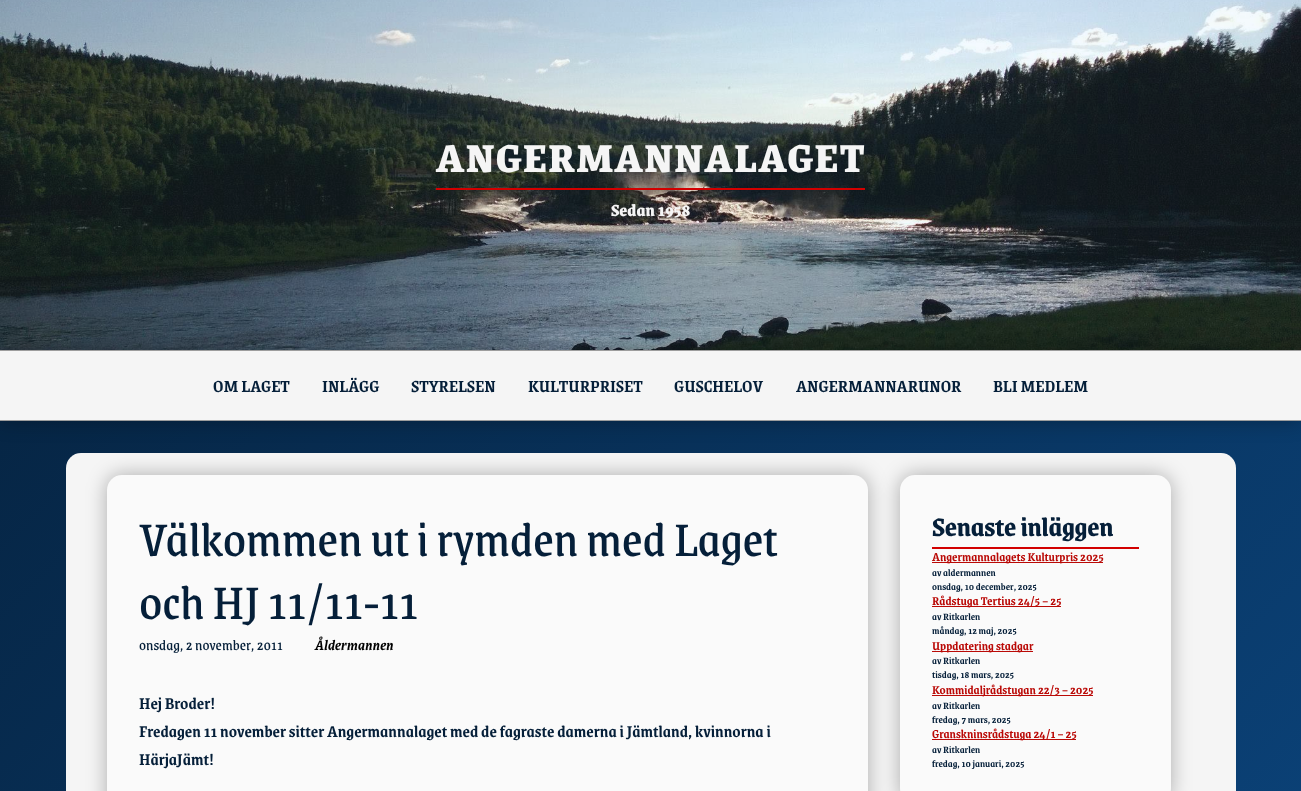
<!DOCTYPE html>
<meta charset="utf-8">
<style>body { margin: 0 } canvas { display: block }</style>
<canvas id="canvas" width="1301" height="791"></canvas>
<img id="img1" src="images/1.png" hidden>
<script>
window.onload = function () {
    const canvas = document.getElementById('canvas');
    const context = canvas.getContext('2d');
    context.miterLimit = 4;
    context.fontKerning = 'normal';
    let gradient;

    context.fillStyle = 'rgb(255, 255, 255)';
    context.fillRect(0, 0, 1301, 791);
    gradient = context.createLinearGradient(-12, 12, 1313, 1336);
    gradient.addColorStop(0, 'rgb(5, 31, 57)');
    gradient.addColorStop(1, 'rgb(12, 73, 133)');
    context.fillStyle = gradient;
    context.fillRect(0, 421, 1301, 370);
    context.drawImage(document.getElementById('img1'), 0, 0, 1301, 350);
    context.fillStyle = 'rgb(210, 0, 0)';
    context.fillRect(436, 188, 429, 2);
    context.fillStyle = 'rgba(0, 0, 0, 0.3)';
    context.filter = 'blur(10px)';
    context.beginPath();
    context.rect(0, 350, 1301, 71);
    context.fill();
    context.filter = 'none';
    context.fillStyle = 'rgb(245, 245, 245)';
    context.fillRect(0, 351, 1301, 69);
    context.fillStyle = 'rgb(157, 157, 157)';
    context.fillRect(0, 350, 1301, 1);
    context.fillRect(0, 420, 1301, 1);
    context.fillStyle = 'rgb(245, 245, 245)';
    context.beginPath();
    context.roundRect(66, 453, 1170, 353, 15);
    context.fill();
    context.fillStyle = 'rgba(0, 0, 0, 0.3)';
    context.filter = 'blur(10px)';
    context.beginPath();
    context.roundRect(107, 475, 761, 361, 15);
    context.fill();
    context.filter = 'none';
    context.fillStyle = 'rgb(250, 250, 250)';
    context.beginPath();
    context.roundRect(107, 475, 761, 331, 15);
    context.fill();
    context.fillStyle = 'rgba(0, 0, 0, 0.3)';
    context.filter = 'blur(10px)';
    context.beginPath();
    context.roundRect(900, 475, 271, 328, 15);
    context.fill();
    context.filter = 'none';
    context.fillStyle = 'rgb(250, 250, 250)';
    context.beginPath();
    context.roundRect(900, 475, 271, 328, 15);
    context.fill();
    context.fillStyle = 'rgb(210, 0, 0)';
    context.fillRect(932, 547, 207, 2);
    context.fillStyle = 'rgb(186, 10, 7)';
    context.fillRect(932, 562, 171, 1);
    context.fillRect(932, 606, 129, 1);
    context.fillRect(932, 651, 101, 1);
    context.fillRect(932, 695, 161, 1);
    context.fillRect(932, 739, 144, 1);
    context.letterSpacing = '1.5px';
    context.font = '800 43.75px Grenze';
    context.fillStyle = 'rgb(245, 245, 245)';
    context.fillText('ANGERMANNALAGET', 436, 172);
    context.letterSpacing = '0px';
    context.font = '800 18.25px Grenze';
    context.fillText('Sedan 1958', 611, 216);
    context.font = '600 18.25px Grenze';
    context.fillStyle = 'rgb(5, 31, 57)';
    context.fillText('OM LAGET', 213, 392);
    context.fillText('INLÄGG', 322, 392);
    context.fillText('STYRELSEN', 411, 392);
    context.fillText('KULTURPRISET', 528, 392);
    context.fillText('GUSCHELOV', 674, 392);
    context.fillText('ANGERMANNARUNOR', 796, 392);
    context.fillText('BLI MEDLEM', 993, 392);
    context.letterSpacing = '-0.25px';
    context.font = '52px Grenze';
    context.fillText('Välkommen ut i rymden med Laget', 139, 556);
    context.fillText('och HJ 11/11-11', 139, 619);
    context.letterSpacing = '0px';
    context.font = '15.6px Grenze';
    context.fillText('onsdag, 2 november, 2011', 139, 650);
    context.font = 'italic 600 15.6px Grenze';
    context.fillStyle = 'rgb(0, 0, 0)';
    context.fillText('Åldermannen', 315, 650);
    context.font = '600 17.65px Grenze';
    context.fillStyle = 'rgb(5, 31, 57)';
    context.fillText('Hej Broder!', 139, 709);
    context.fillText('Fredagen 11 november sitter Angermannalaget med de fagraste damerna i Jämtland, kvinnorna i', 139, 737);
    context.fillText('HärjaJämt!', 139, 765);
    context.letterSpacing = '-0.25px';
    context.font = 'bold 28.5px Grenze';
    context.fillText('Senaste inläggen', 932, 536);
    context.letterSpacing = '0px';
    context.font = '600 13px Grenze';
    context.fillStyle = 'rgb(186, 10, 7)';
    context.fillText('Angermannalagets Kulturpris 2025', 932, 561);
    context.font = '600 10.5px Grenze';
    context.fillStyle = 'rgb(5, 31, 57)';
    context.fillText('av aldermannen', 932, 576);
    context.fillText('onsdag, 10 december, 2025', 932, 590);
    context.font = '600 13px Grenze';
    context.fillStyle = 'rgb(186, 10, 7)';
    context.fillText('Rådstuga Tertius 24/5 – 25', 932, 605);
    context.font = '600 10.5px Grenze';
    context.fillStyle = 'rgb(5, 31, 57)';
    context.fillText('av Ritkarlen', 932, 620);
    context.fillText('måndag, 12 maj, 2025', 932, 634);
    context.font = '600 13px Grenze';
    context.fillStyle = 'rgb(186, 10, 7)';
    context.fillText('Uppdatering stadgar', 932, 650);
    context.font = '600 10.5px Grenze';
    context.fillStyle = 'rgb(5, 31, 57)';
    context.fillText('av Ritkarlen', 932, 664);
    context.fillText('tisdag, 18 mars, 2025', 932, 678);
    context.font = '600 13px Grenze';
    context.fillStyle = 'rgb(186, 10, 7)';
    context.fillText('Kommidaljrådstugan 22/3 – 2025', 932, 694);
    context.font = '600 10.5px Grenze';
    context.fillStyle = 'rgb(5, 31, 57)';
    context.fillText('av Ritkarlen', 932, 709);
    context.fillText('fredag, 7 mars, 2025', 932, 723);
    context.font = '600 13px Grenze';
    context.fillStyle = 'rgb(186, 10, 7)';
    context.fillText('Granskninsrådstuga 24/1 – 25', 932, 738);
    context.font = '600 10.5px Grenze';
    context.fillStyle = 'rgb(5, 31, 57)';
    context.fillText('av Ritkarlen', 932, 753);
    context.fillText('fredag, 10 januari, 2025', 932, 767);
};
</script>
